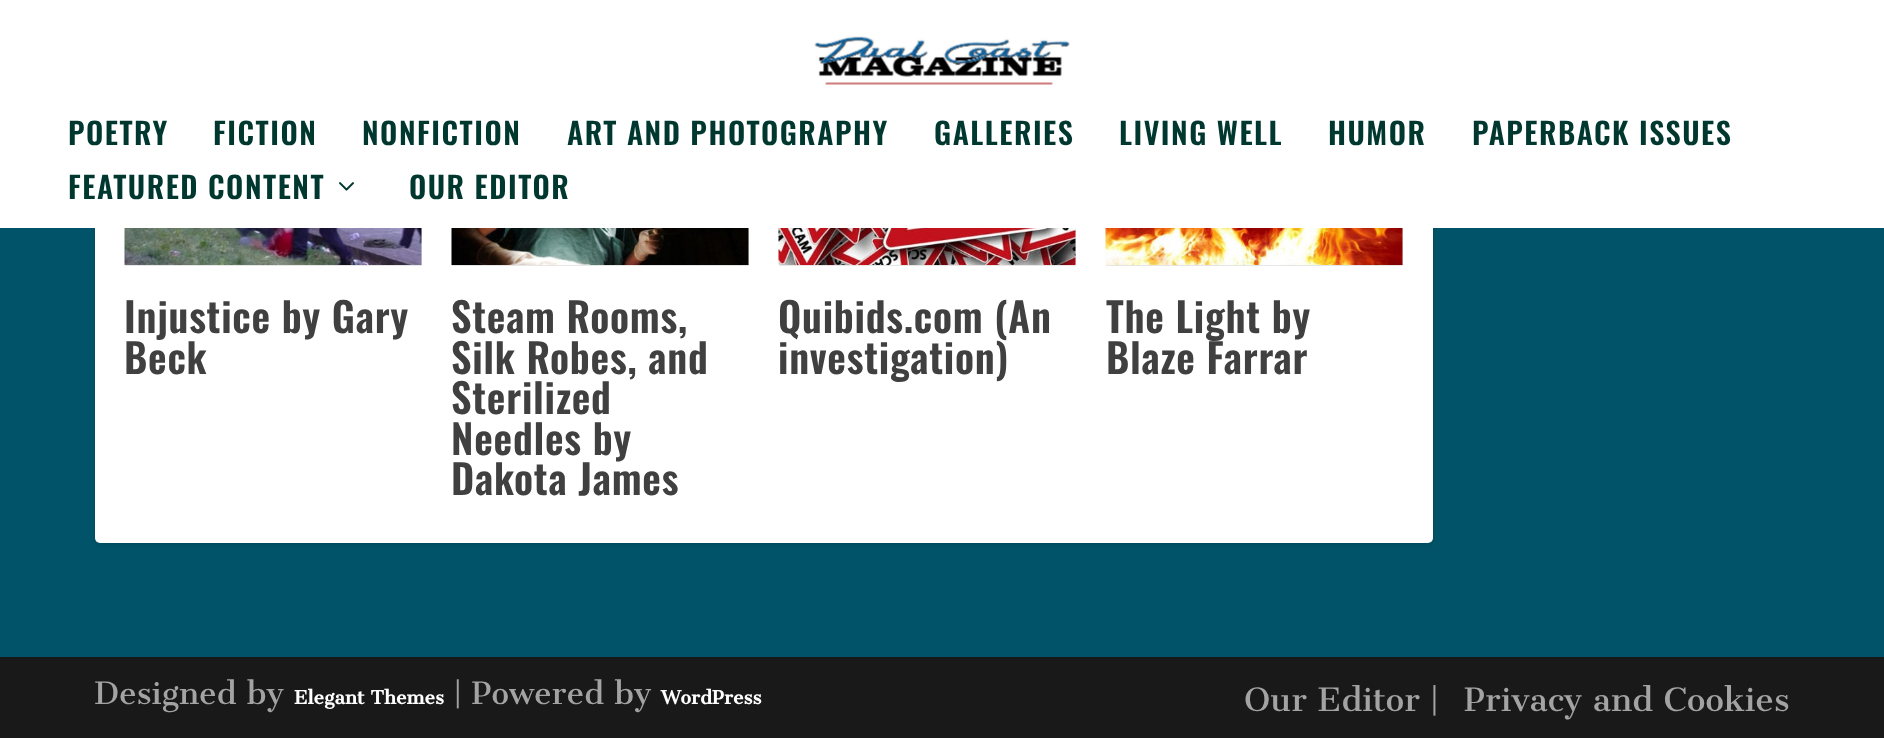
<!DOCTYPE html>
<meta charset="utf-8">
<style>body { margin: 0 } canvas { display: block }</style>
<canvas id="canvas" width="1884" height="738"></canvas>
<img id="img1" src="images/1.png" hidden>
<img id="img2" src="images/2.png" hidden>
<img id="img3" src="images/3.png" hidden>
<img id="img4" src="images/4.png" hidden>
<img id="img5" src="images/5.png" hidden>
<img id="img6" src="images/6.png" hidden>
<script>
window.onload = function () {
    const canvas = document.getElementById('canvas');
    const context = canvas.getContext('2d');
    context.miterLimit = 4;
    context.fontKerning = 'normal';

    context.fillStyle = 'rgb(0, 83, 104)';
    context.fillRect(0, 0, 1884, 738);
    context.fillStyle = 'rgba(0, 0, 0, 0.1)';
    context.filter = 'blur(2px)';
    context.beginPath();
    context.roundRect(95, 3, 1338, 542, 5);
    context.fill();
    context.filter = 'none';
    context.fillStyle = 'rgb(255, 255, 255)';
    context.beginPath();
    context.roundRect(95, 2, 1338, 541, 5);
    context.fill();
    context.fillRect(0, 0, 1884, 228);
    context.drawImage(document.getElementById('img1'), 814, 36, 256, 49);
    context.drawImage(document.getElementById('img2'), 339, 182, 15, 9);
    context.fillStyle = 'rgb(230, 230, 230)';
    context.fillRect(125, 228, 297, 38);
    context.drawImage(document.getElementById('img3'), 124, 228, 298, 37);
    context.fillRect(452, 228, 297, 38);
    context.drawImage(document.getElementById('img4'), 451, 228, 298, 37);
    context.fillRect(779, 228, 297, 38);
    context.drawImage(document.getElementById('img5'), 778, 228, 298, 37);
    context.fillRect(1106, 228, 297, 38);
    context.drawImage(document.getElementById('img6'), 1105, 228, 298, 37);
    context.fillStyle = 'rgb(25, 25, 25)';
    context.fillRect(0, 657, 1884, 81);
    context.letterSpacing = '1.5px';
    context.font = '600 30px Oswald';
    context.fillStyle = 'rgb(0, 56, 48)';
    context.fillText('POETRY', 68, 145);
    context.fillText('FICTION', 213, 145);
    context.fillText('NONFICTION', 362, 145);
    context.fillText('ART AND PHOTOGRAPHY', 567, 145);
    context.fillText('GALLERIES', 934, 145);
    context.fillText('LIVING WELL', 1119, 145);
    context.fillText('HUMOR', 1328, 145);
    context.fillText('PAPERBACK ISSUES', 1472, 145);
    context.fillText('FEATURED CONTENT', 68, 199);
    context.fillText('OUR EDITOR', 409, 199);
    context.letterSpacing = '0.75px';
    context.font = '600 40.5px Oswald';
    context.fillStyle = 'rgb(64, 64, 64)';
    context.fillText('Injustice by Gary', 124, 333);
    context.fillText('Beck', 124, 374);
    context.fillText('Steam Rooms,', 451, 333);
    context.fillText('Silk Robes, and', 451, 374);
    context.fillText('Sterilized', 451, 414);
    context.fillText('Needles by', 451, 455);
    context.fillText('Dakota James', 451, 495);
    context.fillText('Quibids.com (An', 778, 333);
    context.fillText('investigation)', 778, 374);
    context.fillText('The Light by', 1106, 333);
    context.fillText('Blaze Farrar', 1106, 374);
    context.letterSpacing = '0px';
    context.font = '30px Cantata One';
    context.fillStyle = 'rgb(163, 163, 163)';
    context.fillText('Designed by', 94, 704);
    context.font = 'bold 18px Cantata One';
    context.fillStyle = 'rgb(255, 255, 255)';
    context.fillText('Elegant Themes', 294, 704);
    context.font = '30px Cantata One';
    context.fillStyle = 'rgb(163, 163, 163)';
    context.fillText('| Powered by', 454, 704);
    context.font = 'bold 18px Cantata One';
    context.fillStyle = 'rgb(255, 255, 255)';
    context.fillText('WordPress', 661, 704);
    context.font = '31.5px Cantata One';
    context.fillStyle = 'rgb(163, 163, 163)';
    context.fillText('Our Editor |', 1244, 711);
    context.fillText('Privacy and Cookies', 1464, 711);
};
</script>
